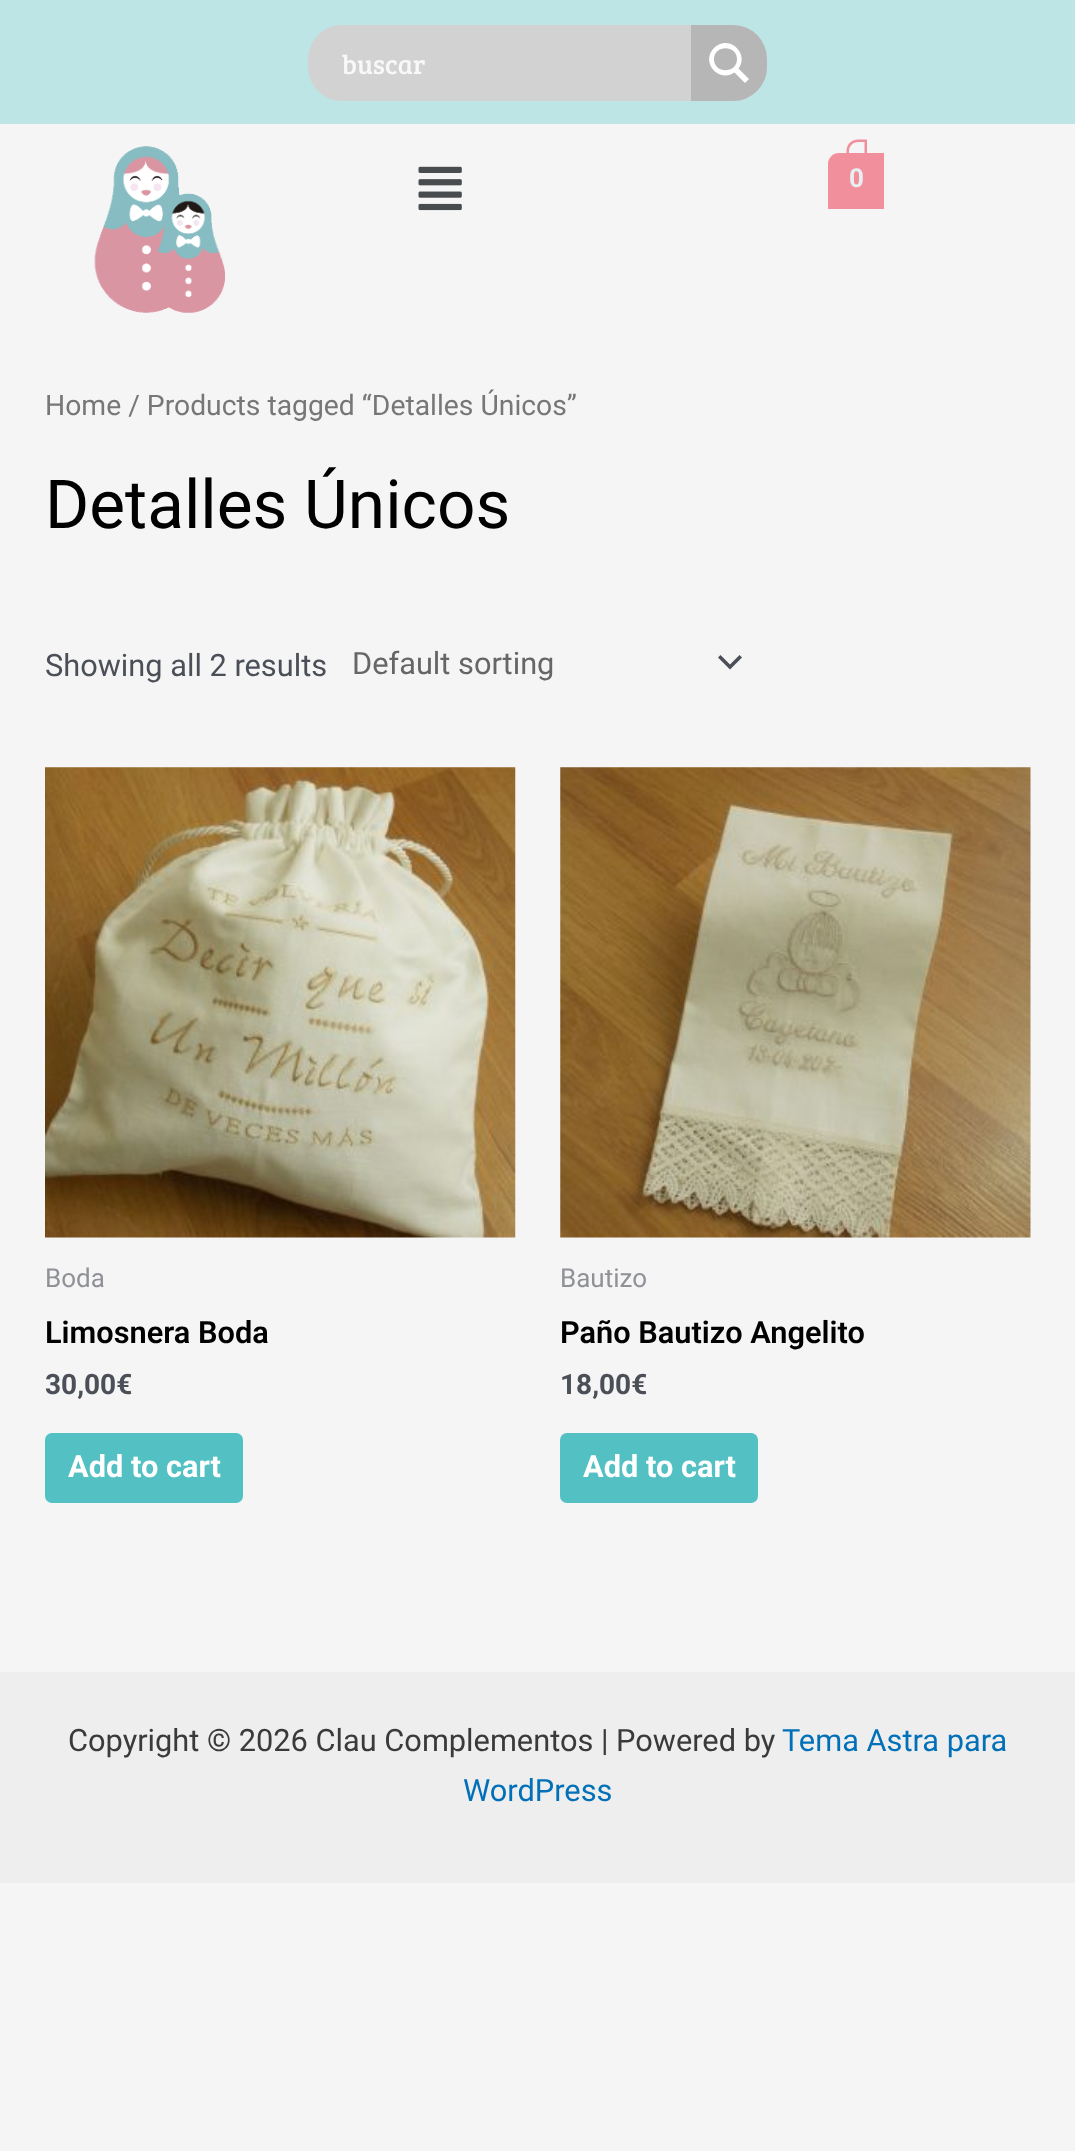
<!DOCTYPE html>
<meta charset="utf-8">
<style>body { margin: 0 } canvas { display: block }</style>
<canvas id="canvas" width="1075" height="2151"></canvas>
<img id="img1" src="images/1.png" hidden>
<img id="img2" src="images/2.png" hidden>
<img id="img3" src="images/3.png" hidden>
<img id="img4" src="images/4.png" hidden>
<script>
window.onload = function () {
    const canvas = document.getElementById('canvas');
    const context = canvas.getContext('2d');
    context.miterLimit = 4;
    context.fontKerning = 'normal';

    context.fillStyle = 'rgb(245, 245, 245)';
    context.fillRect(0, 0, 1075, 2151);
    context.fillStyle = 'rgb(189, 229, 230)';
    context.fillRect(0, 0, 1075, 124);
    context.fillStyle = 'rgb(210, 210, 210)';
    context.beginPath();
    context.roundRect(308, 25, 459, 76, 34);
    context.fill();
    context.fillStyle = 'rgb(182, 182, 182)';
    context.beginPath();
    context.roundRect(691, 25, 76, 76, [0, 34, 34, 0]);
    context.fill();
    context.fillStyle = 'rgb(255, 255, 255)';
    context.beginPath();
    context.moveTo(749, 79);
    context.lineTo(738.5, 68.5);
    context.bezierCurveTo(750, 53, 728, 33.5, 714, 48);
    context.bezierCurveTo(700, 62, 719, 83.5, 734.5, 72.5);
    context.lineTo(745, 83);
    context.closePath();
    context.moveTo(714, 59);
    context.bezierCurveTo(714, 44.5, 737, 44.5, 737, 59);
    context.bezierCurveTo(737, 74, 714, 74, 714, 59);
    context.closePath();
    context.fill();
    context.drawImage(document.getElementById('img1'), 94, 146, 131, 167);
    context.drawImage(document.getElementById('img2'), 418, 166, 44, 45);
    context.fillStyle = 'rgb(242, 143, 157)';
    context.beginPath();
    context.roundRect(829, 154, 54, 54, [10, 0, 0, 0]);
    context.fill();
    context.strokeStyle = 'rgb(242, 143, 157)';
    context.lineWidth = 2;
    context.stroke();
    context.beginPath();
    context.moveTo(858, 139.5);
    context.lineTo(867, 139.5);
    context.lineTo(867, 160);
    context.lineTo(846.5, 160);
    context.lineTo(846.5, 151);
    context.bezierCurveTo(846.5, 144.5, 851.5, 139.5, 858, 139.5);
    context.closePath();
    context.moveTo(858, 142);
    context.lineTo(864.5, 142);
    context.lineTo(864.5, 160);
    context.lineTo(849, 160);
    context.lineTo(849, 151);
    context.bezierCurveTo(849, 146, 853, 142, 858, 142);
    context.closePath();
    context.fill('evenodd');
    context.fillStyle = 'rgb(75, 79, 88)';
    context.beginPath();
    context.moveTo(718, 657.5);
    context.lineTo(730, 669.5);
    context.lineTo(742, 657.5);
    context.lineTo(739.5, 655);
    context.lineTo(730, 664.5);
    context.lineTo(720.5, 655);
    context.closePath();
    context.fill();
    context.drawImage(document.getElementById('img3'), 45, 767, 471, 471);
    context.fillStyle = 'rgb(83, 192, 195)';
    context.beginPath();
    context.roundRect(45, 1433, 198, 70, 7);
    context.fill();
    context.drawImage(document.getElementById('img4'), 560, 767, 471, 471);
    context.beginPath();
    context.roundRect(560, 1433, 198, 70, 7);
    context.fill();
    context.fillStyle = 'rgb(238, 238, 238)';
    context.fillRect(0, 1672, 1075, 211);
    context.font = '27px Bree Serif';
    context.fillStyle = 'rgb(248, 248, 248)';
    context.fillText('buscar', 342, 74);
    context.font = 'bold 26px Roboto';
    context.fillStyle = 'rgb(230, 240, 241)';
    context.fillText('0', 849, 187);
    context.font = '28.3px Roboto';
    context.fillStyle = 'rgb(119, 119, 119)';
    context.fillText('Home / Products tagged “Detalles Únicos”', 45, 415);
    context.font = '67.5px Roboto';
    context.fillStyle = 'rgb(2, 1, 1)';
    context.fillText('Detalles Únicos', 45, 528);
    context.font = '30.75px Roboto';
    context.fillStyle = 'rgb(75, 79, 88)';
    context.fillText('Showing all 2 results', 45, 676);
    context.fillStyle = 'rgb(102, 102, 102)';
    context.fillText('Default sorting', 352, 674);
    context.font = '26px Roboto';
    context.fillStyle = 'rgb(143, 145, 151)';
    context.fillText('Boda', 45, 1287);
    context.font = '600 30.75px Roboto';
    context.fillStyle = 'rgb(2, 1, 1)';
    context.fillText('Limosnera Boda', 45, 1343);
    context.font = 'bold 28px Roboto';
    context.fillStyle = 'rgb(75, 79, 88)';
    context.fillText('30,00€', 45, 1394);
    context.font = 'bold 30.75px Roboto';
    context.fillStyle = 'rgb(255, 255, 255)';
    context.fillText('Add to cart', 68, 1477);
    context.font = '26px Roboto';
    context.fillStyle = 'rgb(143, 145, 151)';
    context.fillText('Bautizo', 560, 1287);
    context.font = '600 30.75px Roboto';
    context.fillStyle = 'rgb(2, 1, 1)';
    context.fillText('Paño Bautizo Angelito', 560, 1343);
    context.font = 'bold 28px Roboto';
    context.fillStyle = 'rgb(75, 79, 88)';
    context.fillText('18,00€', 560, 1394);
    context.font = 'bold 30.75px Roboto';
    context.fillStyle = 'rgb(255, 255, 255)';
    context.fillText('Add to cart', 583, 1477);
    context.font = '30.75px Roboto';
    context.fillStyle = 'rgb(58, 58, 58)';
    context.fillText('Copyright © 2026 Clau Complementos | Powered by', 68, 1751);
    context.fillStyle = 'rgb(1, 112, 185)';
    context.fillText('Tema Astra para', 782, 1751);
    context.fillText('WordPress', 463, 1801);
};
</script>
